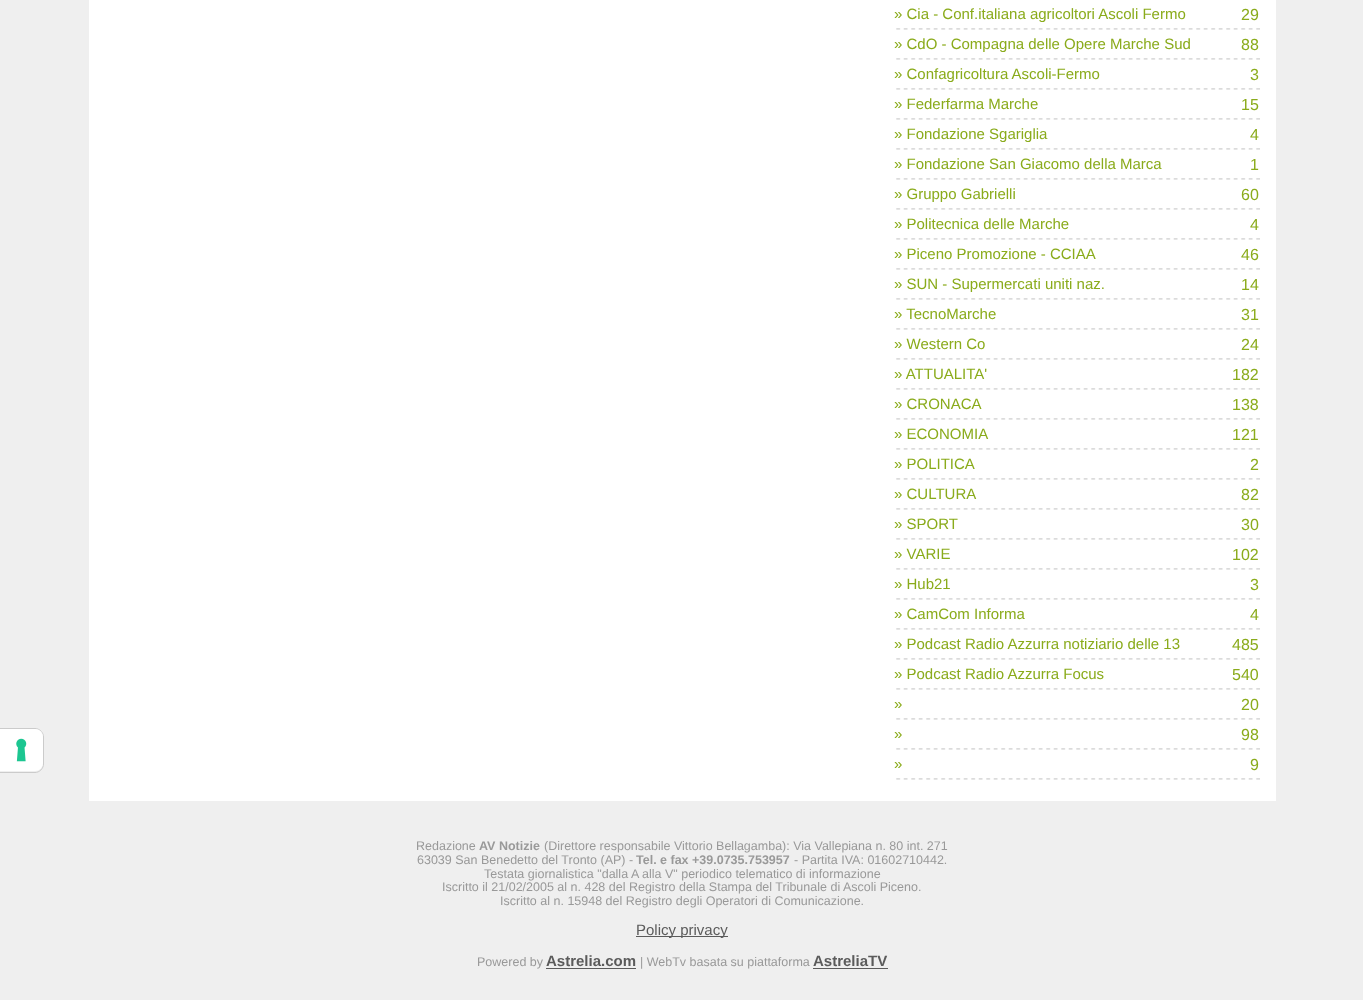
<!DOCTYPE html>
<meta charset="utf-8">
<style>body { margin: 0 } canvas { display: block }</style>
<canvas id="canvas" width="1363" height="1000"></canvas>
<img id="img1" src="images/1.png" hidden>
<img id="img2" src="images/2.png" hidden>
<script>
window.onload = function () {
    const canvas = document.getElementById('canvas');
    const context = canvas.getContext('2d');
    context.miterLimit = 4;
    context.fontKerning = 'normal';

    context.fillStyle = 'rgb(239, 239, 239)';
    context.fillRect(0, 0, 1363, 1000);
    context.beginPath();
    context.moveTo(-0.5, 728.5);
    context.lineTo(35, 728.5);
    context.bezierCurveTo(39.5, 728.5, 43.5, 732.5, 43.5, 737);
    context.lineTo(43.5, 764);
    context.bezierCurveTo(43.5, 768.5, 39.5, 772.5, 35, 772.5);
    context.lineTo(-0.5, 772.5);
    context.closePath();
    context.strokeStyle = 'rgb(203, 203, 203)';
    context.stroke();
    context.fillStyle = 'rgb(255, 255, 255)';
    context.beginPath();
    context.roundRect(0, 729, 43, 42, [0, 8, 8, 0]);
    context.fill();
    context.drawImage(document.getElementById('img1'), 16, 738, 11, 24);
    context.fillRect(89, 0, 1187, 801);
    context.drawImage(document.getElementById('img2'), 896, 28, 364, 2);
    context.drawImage(document.getElementById('img2'), 896, 58, 364, 2);
    context.drawImage(document.getElementById('img2'), 896, 88, 364, 2);
    context.drawImage(document.getElementById('img2'), 896, 118, 364, 2);
    context.drawImage(document.getElementById('img2'), 896, 148, 364, 2);
    context.drawImage(document.getElementById('img2'), 896, 178, 364, 2);
    context.drawImage(document.getElementById('img2'), 896, 208, 364, 2);
    context.drawImage(document.getElementById('img2'), 896, 238, 364, 2);
    context.drawImage(document.getElementById('img2'), 896, 268, 364, 2);
    context.drawImage(document.getElementById('img2'), 896, 298, 364, 2);
    context.drawImage(document.getElementById('img2'), 896, 328, 364, 2);
    context.drawImage(document.getElementById('img2'), 896, 358, 364, 2);
    context.drawImage(document.getElementById('img2'), 896, 388, 364, 2);
    context.drawImage(document.getElementById('img2'), 896, 418, 364, 2);
    context.drawImage(document.getElementById('img2'), 896, 448, 364, 2);
    context.drawImage(document.getElementById('img2'), 896, 478, 364, 2);
    context.drawImage(document.getElementById('img2'), 896, 508, 364, 2);
    context.drawImage(document.getElementById('img2'), 896, 538, 364, 2);
    context.drawImage(document.getElementById('img2'), 896, 568, 364, 2);
    context.drawImage(document.getElementById('img2'), 896, 598, 364, 2);
    context.drawImage(document.getElementById('img2'), 896, 628, 364, 2);
    context.drawImage(document.getElementById('img2'), 896, 658, 364, 2);
    context.drawImage(document.getElementById('img2'), 896, 688, 364, 2);
    context.drawImage(document.getElementById('img2'), 896, 718, 364, 2);
    context.drawImage(document.getElementById('img2'), 896, 748, 364, 2);
    context.drawImage(document.getElementById('img2'), 896, 778, 364, 2);
    context.fillStyle = 'rgb(91, 91, 91)';
    context.fillRect(636, 936, 92, 1);
    context.fillRect(546, 968, 90, 1);
    context.fillRect(813, 968, 75, 1);
    context.font = '15px Liberation Sans';
    context.fillStyle = 'rgb(138, 171, 27)';
    context.fillText('» Cia - Conf.italiana agricoltori Ascoli Fermo', 894, 19);
    context.font = '16px Liberation Sans';
    context.fillText('29', 1241, 20);
    context.font = '15px Liberation Sans';
    context.fillText('» CdO - Compagna delle Opere Marche Sud', 894, 49);
    context.font = '16px Liberation Sans';
    context.fillText('88', 1241, 50);
    context.font = '15px Liberation Sans';
    context.fillText('» Confagricoltura Ascoli-Fermo', 894, 79);
    context.font = '16px Liberation Sans';
    context.fillText('3', 1250, 80);
    context.font = '15px Liberation Sans';
    context.fillText('» Federfarma Marche', 894, 109);
    context.font = '16px Liberation Sans';
    context.fillText('15', 1241, 110);
    context.font = '15px Liberation Sans';
    context.fillText('» Fondazione Sgariglia', 894, 139);
    context.font = '16px Liberation Sans';
    context.fillText('4', 1250, 140);
    context.font = '15px Liberation Sans';
    context.fillText('» Fondazione San Giacomo della Marca', 894, 169);
    context.font = '16px Liberation Sans';
    context.fillText('1', 1250, 170);
    context.font = '15px Liberation Sans';
    context.fillText('» Gruppo Gabrielli', 894, 199);
    context.font = '16px Liberation Sans';
    context.fillText('60', 1241, 200);
    context.font = '15px Liberation Sans';
    context.fillText('» Politecnica delle Marche', 894, 229);
    context.font = '16px Liberation Sans';
    context.fillText('4', 1250, 230);
    context.font = '15px Liberation Sans';
    context.fillText('» Piceno Promozione - CCIAA', 894, 259);
    context.font = '16px Liberation Sans';
    context.fillText('46', 1241, 260);
    context.font = '15px Liberation Sans';
    context.fillText('» SUN - Supermercati uniti naz.', 894, 289);
    context.font = '16px Liberation Sans';
    context.fillText('14', 1241, 290);
    context.font = '15px Liberation Sans';
    context.fillText('» TecnoMarche', 894, 319);
    context.font = '16px Liberation Sans';
    context.fillText('31', 1241, 320);
    context.font = '15px Liberation Sans';
    context.fillText('» Western Co', 894, 349);
    context.font = '16px Liberation Sans';
    context.fillText('24', 1241, 350);
    context.font = '15px Liberation Sans';
    context.fillText('» ATTUALITA\'', 894, 379);
    context.font = '16px Liberation Sans';
    context.fillText('182', 1232, 380);
    context.font = '15px Liberation Sans';
    context.fillText('» CRONACA', 894, 409);
    context.font = '16px Liberation Sans';
    context.fillText('138', 1232, 410);
    context.font = '15px Liberation Sans';
    context.fillText('» ECONOMIA', 894, 439);
    context.font = '16px Liberation Sans';
    context.fillText('121', 1232, 440);
    context.font = '15px Liberation Sans';
    context.fillText('» POLITICA', 894, 469);
    context.font = '16px Liberation Sans';
    context.fillText('2', 1250, 470);
    context.font = '15px Liberation Sans';
    context.fillText('» CULTURA', 894, 499);
    context.font = '16px Liberation Sans';
    context.fillText('82', 1241, 500);
    context.font = '15px Liberation Sans';
    context.fillText('» SPORT', 894, 529);
    context.font = '16px Liberation Sans';
    context.fillText('30', 1241, 530);
    context.font = '15px Liberation Sans';
    context.fillText('» VARIE', 894, 559);
    context.font = '16px Liberation Sans';
    context.fillText('102', 1232, 560);
    context.font = '15px Liberation Sans';
    context.fillText('» Hub21', 894, 589);
    context.font = '16px Liberation Sans';
    context.fillText('3', 1250, 590);
    context.font = '15px Liberation Sans';
    context.fillText('» CamCom Informa', 894, 619);
    context.font = '16px Liberation Sans';
    context.fillText('4', 1250, 620);
    context.font = '15px Liberation Sans';
    context.fillText('» Podcast Radio Azzurra notiziario delle 13', 894, 649);
    context.font = '16px Liberation Sans';
    context.fillText('485', 1232, 650);
    context.font = '15px Liberation Sans';
    context.fillText('» Podcast Radio Azzurra Focus', 894, 679);
    context.font = '16px Liberation Sans';
    context.fillText('540', 1232, 680);
    context.font = '15px Liberation Sans';
    context.fillText('»', 894, 709);
    context.font = '16px Liberation Sans';
    context.fillText('20', 1241, 710);
    context.font = '15px Liberation Sans';
    context.fillText('»', 894, 739);
    context.font = '16px Liberation Sans';
    context.fillText('98', 1241, 740);
    context.font = '15px Liberation Sans';
    context.fillText('»', 894, 769);
    context.font = '16px Liberation Sans';
    context.fillText('9', 1250, 770);
    context.font = '12.5px Liberation Sans';
    context.fillStyle = 'rgb(153, 153, 153)';
    context.fillText('Redazione', 416, 850);
    context.font = 'bold 12.5px Liberation Sans';
    context.fillText('AV Notizie', 479, 850);
    context.font = '12.5px Liberation Sans';
    context.fillText('(Direttore responsabile Vittorio Bellagamba): Via Vallepiana n. 80 int. 271', 544, 850);
    context.fillText('63039 San Benedetto del Tronto (AP) -', 417, 864);
    context.font = 'bold 12.5px Liberation Sans';
    context.fillText('Tel. e fax +39.0735.753957', 636, 864);
    context.font = '12.5px Liberation Sans';
    context.fillText('- Partita IVA: 01602710442.', 794, 864);
    context.fillText('Testata giornalistica "dalla A alla V" periodico telematico di informazione', 484, 878);
    context.fillText('Iscritto il 21/02/2005 al n. 428 del Registro della Stampa del Tribunale di Ascoli Piceno.', 442, 891);
    context.fillText('Iscritto al n. 15948 del Registro degli Operatori di Comunicazione.', 500, 905);
    context.font = '15px Liberation Sans';
    context.fillStyle = 'rgb(91, 91, 91)';
    context.fillText('Policy privacy', 636, 935);
    context.font = '12.5px Liberation Sans';
    context.fillStyle = 'rgb(153, 153, 153)';
    context.fillText('Powered by', 477, 966);
    context.font = 'bold 15px Liberation Sans';
    context.fillStyle = 'rgb(91, 91, 91)';
    context.fillText('Astrelia.com', 546, 966);
    context.font = '12.5px Liberation Sans';
    context.fillStyle = 'rgb(153, 153, 153)';
    context.fillText('| WebTv basata su piattaforma', 640, 966);
    context.font = 'bold 15px Liberation Sans';
    context.fillStyle = 'rgb(91, 91, 91)';
    context.fillText('AstreliaTV', 813, 966);
};
</script>
